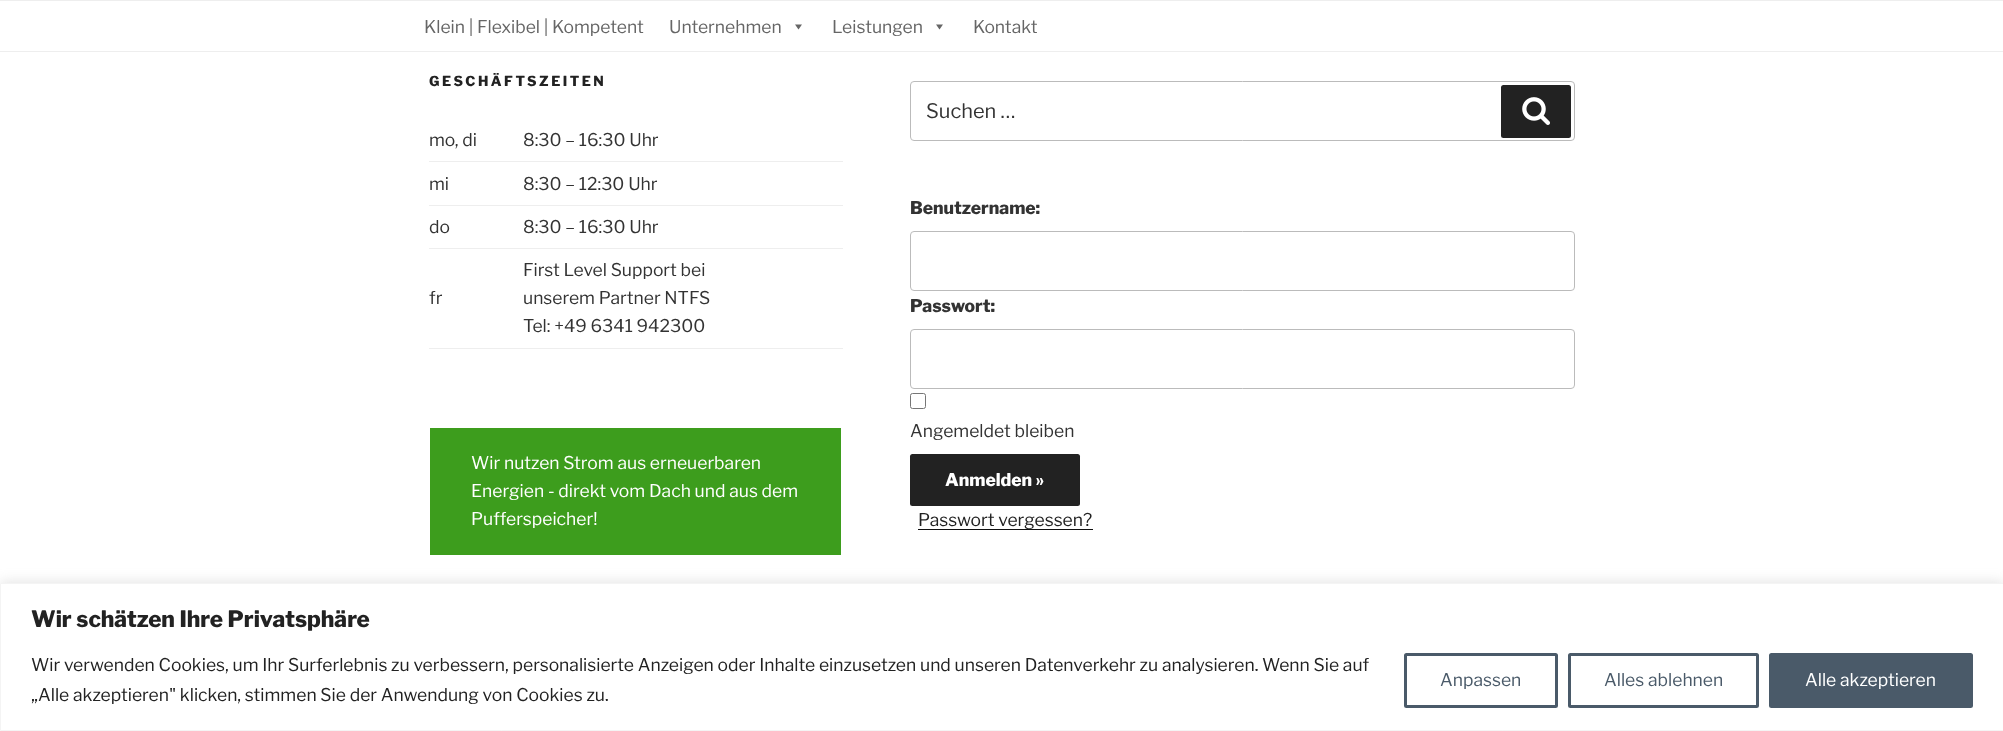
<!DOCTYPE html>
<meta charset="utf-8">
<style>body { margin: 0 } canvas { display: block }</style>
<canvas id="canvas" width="2003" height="731"></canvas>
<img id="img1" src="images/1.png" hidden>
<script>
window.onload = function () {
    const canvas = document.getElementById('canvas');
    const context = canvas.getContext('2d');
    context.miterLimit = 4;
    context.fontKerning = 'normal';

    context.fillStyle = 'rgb(255, 255, 255)';
    context.fillRect(0, 0, 2003, 731);
    context.fillStyle = 'rgb(238, 238, 238)';
    context.fillRect(0, 0, 2003, 1);
    context.fillRect(0, 51, 2003, 1);
    context.fillStyle = 'rgb(102, 102, 102)';
    context.beginPath();
    context.moveTo(802, 24.5);
    context.lineTo(798.5, 29.5);
    context.lineTo(795, 24.5);
    context.closePath();
    context.fill();
    context.beginPath();
    context.moveTo(943, 24.5);
    context.lineTo(939.5, 29.5);
    context.lineTo(936, 24.5);
    context.closePath();
    context.fill();
    context.fillStyle = 'rgb(238, 238, 238)';
    context.fillRect(429, 161, 414, 1);
    context.fillRect(429, 205, 414, 1);
    context.fillRect(429, 248, 414, 1);
    context.fillRect(429, 348, 414, 1);
    context.fillStyle = 'rgb(61, 157, 29)';
    context.fillRect(430, 428, 411, 127);
    context.beginPath();
    context.roundRect(910.5, 81.5, 664, 59, 3.5);
    context.strokeStyle = 'rgb(187, 187, 187)';
    context.stroke();
    context.fillStyle = 'rgb(34, 34, 34)';
    context.beginPath();
    context.roundRect(1501, 85, 70, 53, 2.5);
    context.fill();
    context.drawImage(document.getElementById('img1'), 1522, 97, 28, 28);
    context.beginPath();
    context.roundRect(910.5, 231.5, 664, 59, 3.5);
    context.stroke();
    context.beginPath();
    context.roundRect(910.5, 329.5, 664, 59, 3.5);
    context.stroke();
    context.beginPath();
    context.roundRect(910.5, 393.5, 15, 15, 2);
    context.strokeStyle = 'rgb(118, 118, 118)';
    context.stroke();
    context.beginPath();
    context.roundRect(910, 454, 170, 52, 2.5);
    context.fill();
    context.fillStyle = 'rgb(15, 15, 15)';
    context.fillRect(918, 529, 175, 1);
    context.fillStyle = 'rgba(172, 171, 171, 0.3)';
    context.filter = 'blur(6px)';
    context.beginPath();
    context.rect(0, 581, 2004, 149);
    context.fill();
    context.filter = 'none';
    context.fillStyle = 'rgb(255, 255, 255)';
    context.beginPath();
    context.rect(0.5, 583.5, 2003, 147);
    context.fill();
    context.strokeStyle = 'rgb(244, 244, 244)';
    context.stroke();
    context.beginPath();
    context.roundRect(1405.5, 654.5, 151, 52, 1);
    context.strokeStyle = 'rgb(74, 90, 105)';
    context.lineWidth = 3;
    context.stroke();
    context.beginPath();
    context.roundRect(1569.5, 654.5, 188, 52, 1);
    context.stroke();
    context.fillStyle = 'rgb(74, 90, 105)';
    context.beginPath();
    context.roundRect(1770.5, 654.5, 201, 52, 1);
    context.fill();
    context.stroke();
    context.font = '100 17.5px "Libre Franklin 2"';
    context.fillStyle = 'rgb(102, 102, 102)';
    context.fillText('Klein | Flexibel | Kompetent', 424, 33);
    context.fillText('Unternehmen', 669, 33);
    context.fillText('Leistungen', 832, 33);
    context.fillText('Kontakt', 973, 33);
    context.letterSpacing = '2.5px';
    context.font = '100 13.75px Libre Franklin';
    context.fillStyle = 'rgb(34, 34, 34)';
    context.fillText('GESCHÄFTSZEITEN', 429, 86);
    context.letterSpacing = '0px';
    context.font = '100 17.5px "Libre Franklin 2"';
    context.fillStyle = 'rgb(51, 51, 51)';
    context.fillText('mo, di', 429, 146);
    context.fillText('8:30 – 16:30 Uhr', 523, 146);
    context.fillText('mi', 429, 190);
    context.fillText('8:30 – 12:30 Uhr', 523, 190);
    context.fillText('do', 429, 233);
    context.fillText('8:30 – 16:30 Uhr', 523, 233);
    context.fillText('fr', 429, 304);
    context.fillText('First Level Support bei', 523, 276);
    context.fillText('unserem Partner NTFS', 523, 304);
    context.fillText('Tel: +49 6341 942300', 523, 332);
    context.fillStyle = 'rgb(255, 255, 255)';
    context.fillText('Wir nutzen Strom aus erneuerbaren', 471, 469);
    context.fillText('Energien - direkt vom Dach und aus dem', 471, 497);
    context.fillText('Pufferspeicher!', 471, 525);
    context.font = '100 20px "Libre Franklin 2"';
    context.fillStyle = 'rgb(51, 51, 51)';
    context.fillText('Suchen …', 926, 118);
    context.font = '100 17.5px Libre Franklin';
    context.fillText('Benutzername:', 910, 214);
    context.fillText('Passwort:', 910, 312);
    context.font = '100 17.5px "Libre Franklin 2"';
    context.fillText('Angemeldet bleiben', 910, 437);
    context.font = '100 17.5px Libre Franklin';
    context.fillStyle = 'rgb(255, 255, 255)';
    context.fillText('Anmelden »', 945, 486);
    context.font = '100 17.5px "Libre Franklin 2"';
    context.fillStyle = 'rgb(34, 34, 34)';
    context.fillText('Passwort vergessen?', 918, 526);
    context.font = '100 22.5px Libre Franklin';
    context.fillText('Wir schätzen Ihre Privatsphäre', 31, 627);
    context.font = '100 17.5px "Libre Franklin 2"';
    context.fillText('Wir verwenden Cookies, um Ihr Surferlebnis zu verbessern, personalisierte Anzeigen oder Inhalte einzusetzen und unseren Datenverkehr zu analysieren. Wenn Sie auf', 31, 671);
    context.fillText('„Alle akzeptieren" klicken, stimmen Sie der Anwendung von Cookies zu.', 31, 701);
    context.fillStyle = 'rgb(74, 90, 105)';
    context.fillText('Anpassen', 1440, 686);
    context.fillText('Alles ablehnen', 1604, 686);
    context.fillStyle = 'rgb(255, 255, 255)';
    context.fillText('Alle akzeptieren', 1805, 686);
};
</script>
